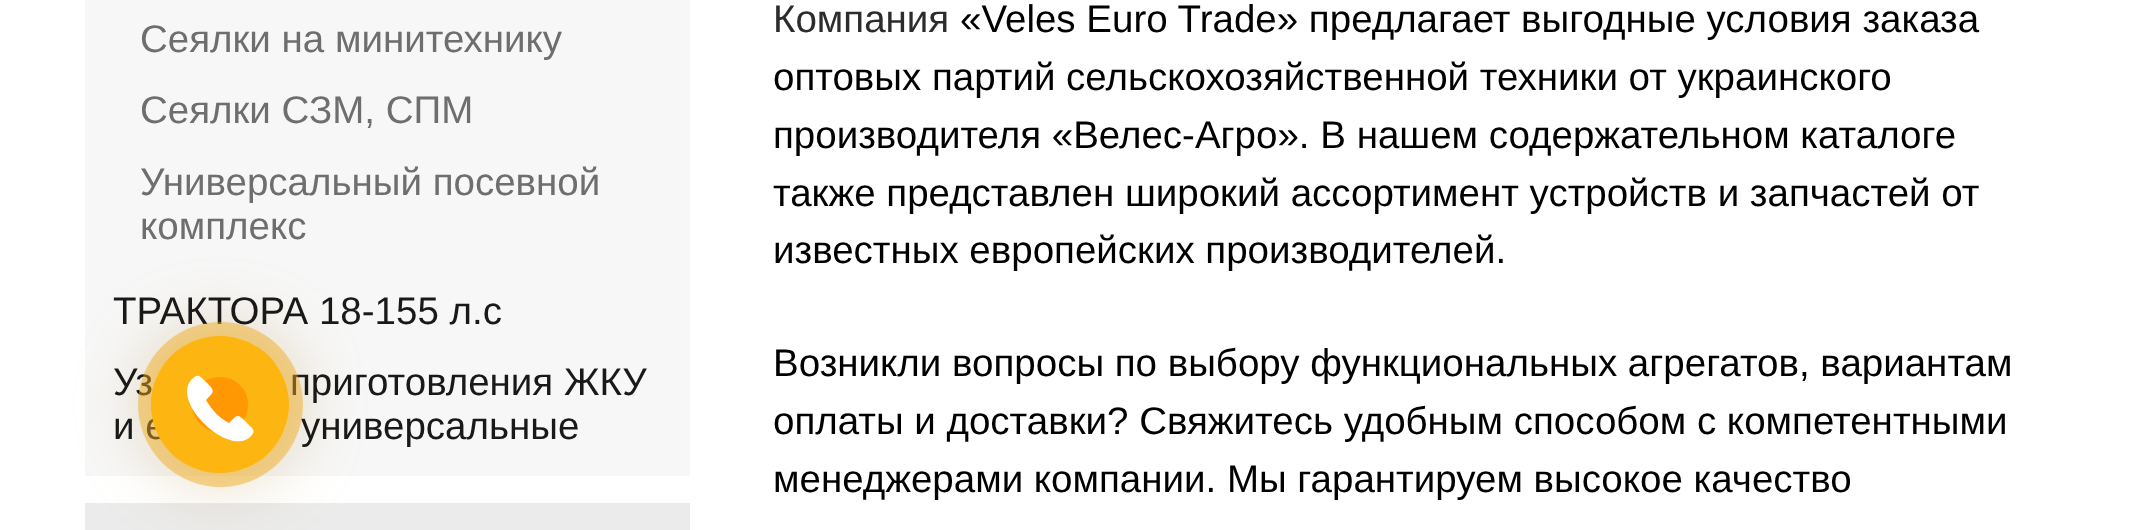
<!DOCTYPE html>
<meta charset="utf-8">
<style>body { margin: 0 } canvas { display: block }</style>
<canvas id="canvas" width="2149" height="530"></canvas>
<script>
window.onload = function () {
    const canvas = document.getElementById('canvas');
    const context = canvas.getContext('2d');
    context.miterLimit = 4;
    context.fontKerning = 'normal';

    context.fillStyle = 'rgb(255, 255, 255)';
    context.fillRect(0, 0, 2149, 530);
    context.fillStyle = 'rgb(247, 247, 247)';
    context.fillRect(85, 0, 605, 476);
    context.fillStyle = 'rgb(235, 235, 235)';
    context.fillRect(85, 503, 605, 27);
    context.fillStyle = 'rgba(185, 151, 74, 0.4)';
    context.filter = 'blur(34.5px)';
    context.beginPath();
    context.roundRect(146, 330, 148, 149, 74);
    context.fill();
    context.filter = 'none';
    context.font = '38.5px Liberation Sans';
    context.fillStyle = 'rgb(110, 110, 110)';
    context.fillText('Сеялки на минитехнику', 140, 52);
    context.fillText('Сеялки СЗМ, СПМ', 140, 123);
    context.fillText('Универсальный посевной', 140, 195);
    context.fillText('комплекс', 140, 239);
    context.fillStyle = 'rgb(25, 25, 25)';
    context.fillText('ТРАКТОРА 18-155 л.с', 113, 324);
    context.fillText('Уз', 113, 395);
    context.fillText('приготовления ЖКУ', 290, 395);
    context.fillText('и е', 113, 439);
    context.fillText('универсальные', 301, 439);
    context.fillStyle = 'rgb(45, 44, 44)';
    context.fillText('Компания', 773, 32);
    context.fillStyle = 'rgb(0, 0, 0)';
    context.fillText('«Veles Euro Trade» предлагает выгодные условия заказа', 960, 32);
    context.fillText('оптовых партий сельскохозяйственной техники от украинского', 773, 90);
    context.fillText('производителя «Велес-Агро». В нашем содержательном каталоге', 773, 148);
    context.fillText('также представлен широкий ассортимент устройств и запчастей от', 773, 206);
    context.fillText('известных европейских производителей.', 773, 263);
    context.fillText('Возникли вопросы по выбору функциональных агрегатов, вариантам', 773, 376);
    context.fillText('оплаты и доставки? Свяжитесь удобным способом с компетентными', 773, 434);
    context.fillText('менеджерами компании. Мы гарантируем высокое качество', 773, 492);
    context.beginPath();
    context.arc(220.5, 404.5, 75.5, 0, 2 * Math.PI);
    context.strokeStyle = 'rgba(240, 169, 26, 0.47)';
    context.lineWidth = 14;
    context.stroke();
    context.fillStyle = 'rgb(255, 152, 3)';
    context.beginPath();
    context.roundRect(151, 336, 138, 137, 68.5);
    context.fill();
    context.beginPath();
    context.roundRect(171.5, 356.5, 97, 96, 48);
    context.strokeStyle = 'rgba(249, 226, 39, 0.4)';
    context.lineWidth = 41;
    context.stroke();
    context.fillStyle = 'rgb(255, 255, 255)';
    context.beginPath();
    context.moveTo(252, 428);
    context.lineTo(245, 421);
    context.bezierCurveTo(242, 418, 239, 414, 235, 417);
    context.lineTo(229, 423);
    context.bezierCurveTo(218, 417, 213, 411, 206, 400);
    context.bezierCurveTo(215, 391, 215, 391, 206, 382);
    context.bezierCurveTo(199, 375, 198, 373, 191, 380);
    context.bezierCurveTo(172, 403, 227, 455, 249, 438);
    context.bezierCurveTo(251, 436, 256, 432, 252, 428);
    context.closePath();
    context.fill();
};
</script>
